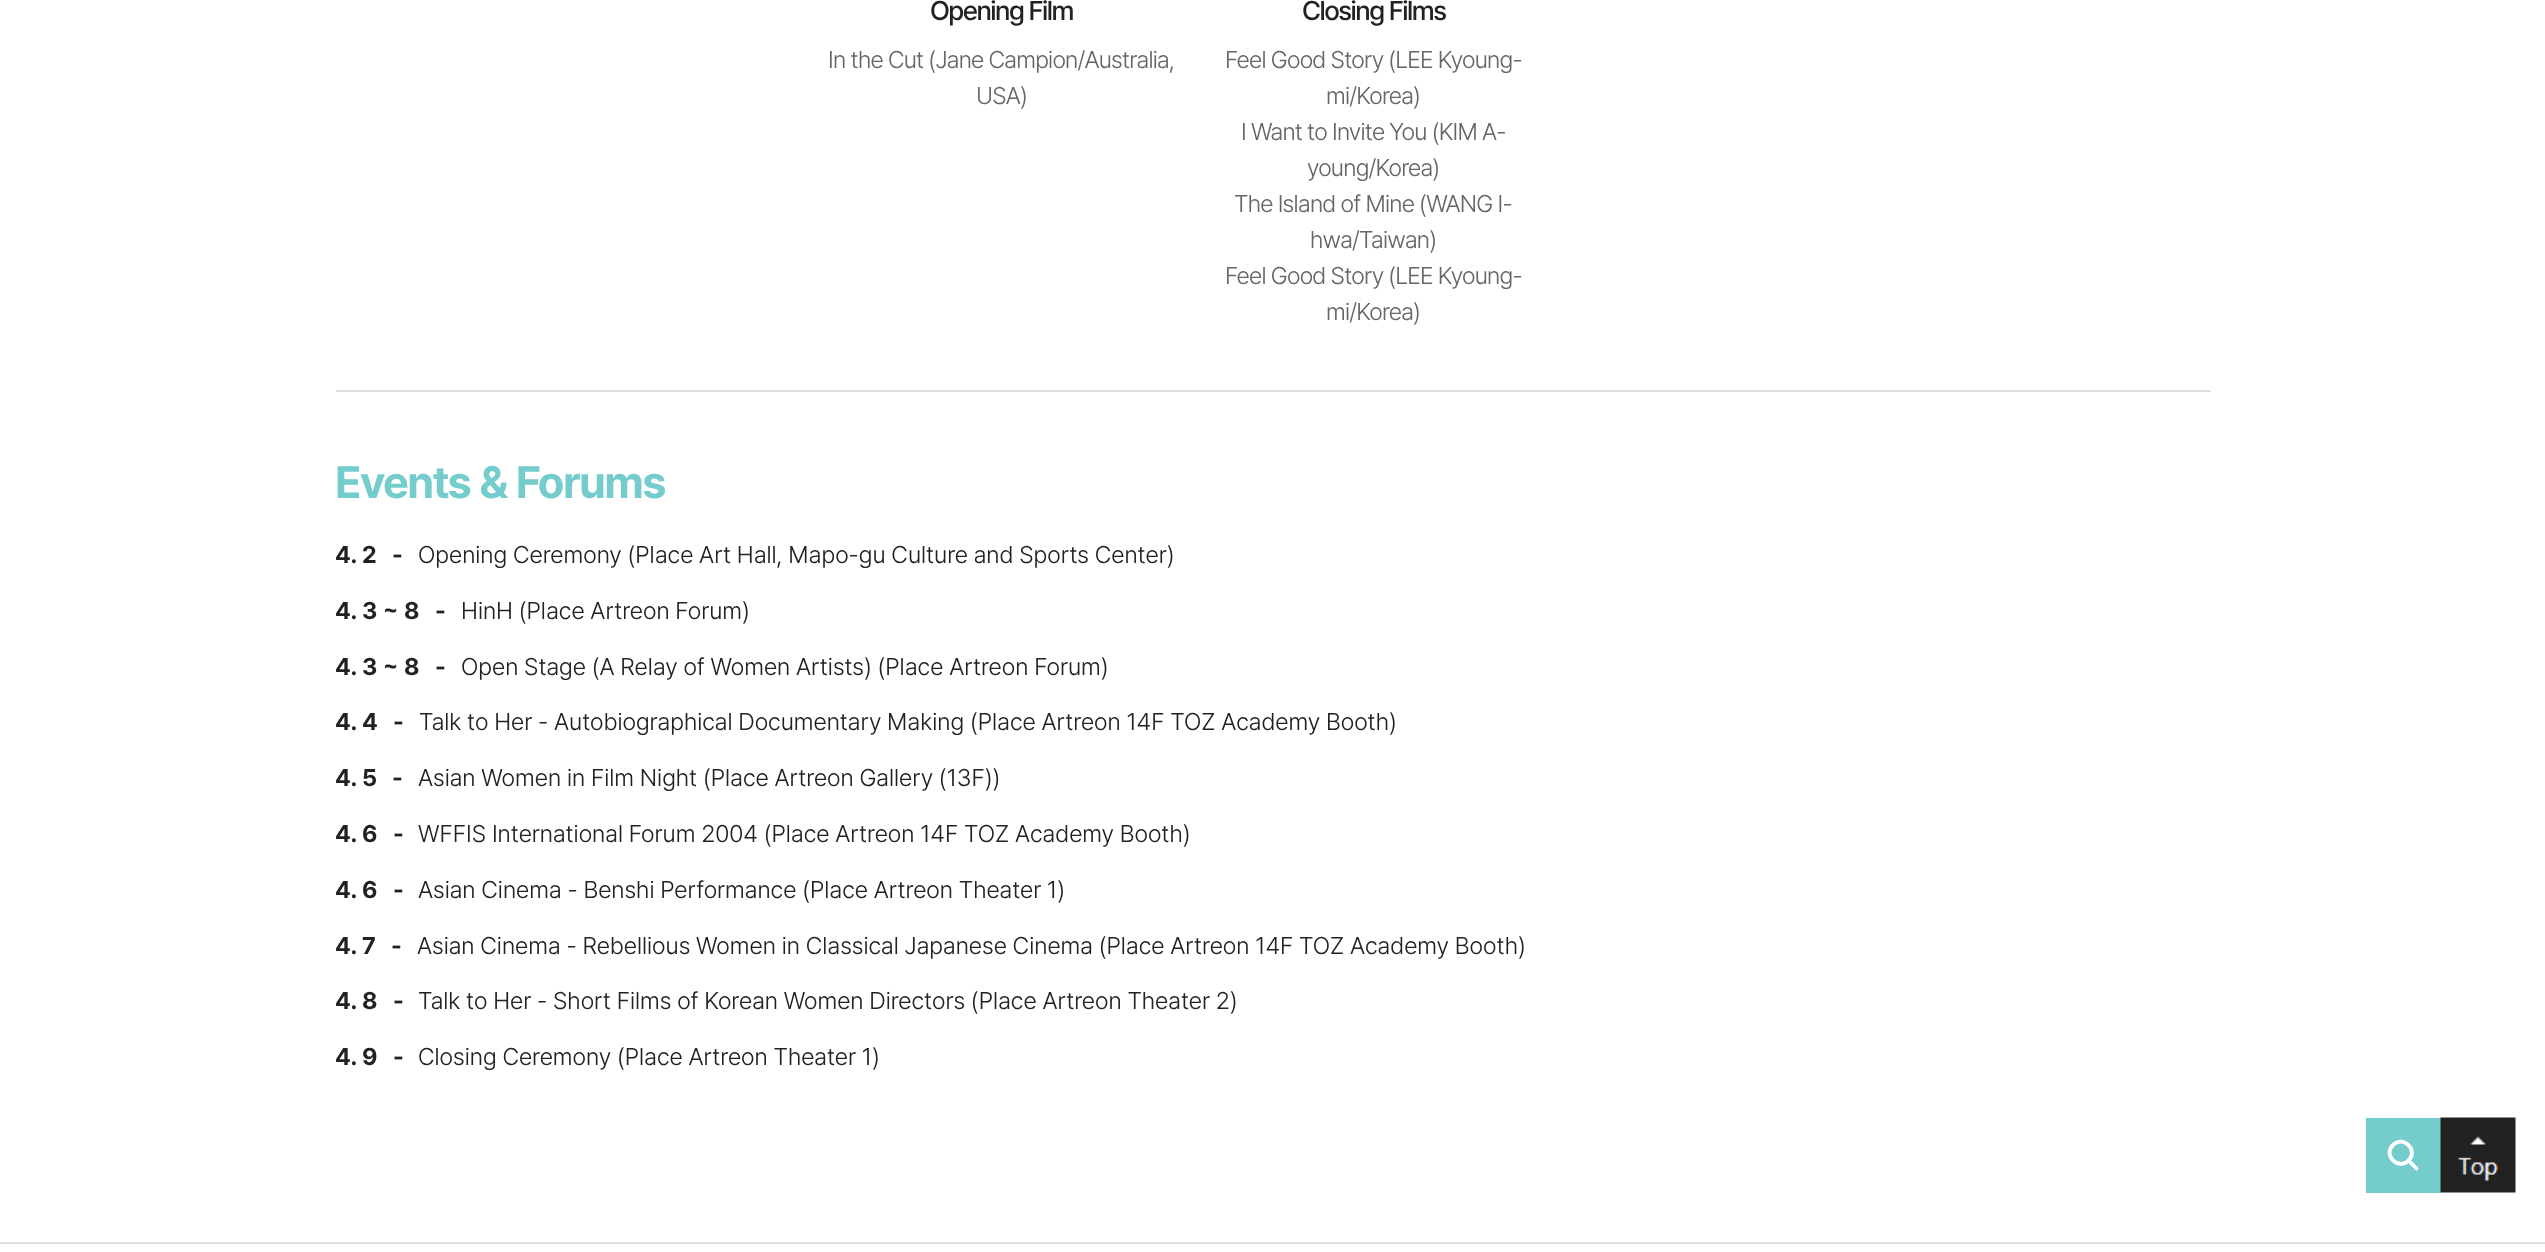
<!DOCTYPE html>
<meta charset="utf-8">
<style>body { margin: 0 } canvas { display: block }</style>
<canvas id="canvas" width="2545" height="1252"></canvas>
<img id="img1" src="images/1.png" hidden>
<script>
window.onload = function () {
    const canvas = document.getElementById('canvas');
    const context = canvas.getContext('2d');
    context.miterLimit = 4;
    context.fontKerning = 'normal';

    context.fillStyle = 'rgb(255, 255, 255)';
    context.fillRect(0, 0, 2545, 1252);
    context.fillStyle = 'rgb(224, 224, 224)';
    context.fillRect(336, 390, 1875, 2);
    context.fillStyle = 'rgb(117, 204, 204)';
    context.fillRect(2366, 1118, 75, 75);
    context.beginPath();
    context.moveTo(2416.5, 1168.5);
    context.lineTo(2408.5, 1160.5);
    context.moveTo(2408.5, 1160.5);
    context.bezierCurveTo(2419, 1150.5, 2403, 1134.5, 2393, 1145);
    context.bezierCurveTo(2382.5, 1155, 2398.5, 1171, 2408.5, 1160.5);
    context.closePath();
    context.strokeStyle = 'rgb(255, 255, 255)';
    context.lineWidth = 3.8;
    context.lineCap = 'round';
    context.lineJoin = 'round';
    context.stroke();
    context.drawImage(document.getElementById('img1'), 2440, 1117, 76, 76);
    context.fillStyle = 'rgb(224, 224, 224)';
    context.fillRect(0, 1242, 2545, 2);
    context.letterSpacing = '-1.5px';
    context.font = '500 27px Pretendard';
    context.fillStyle = 'rgb(34, 34, 34)';
    context.fillText('Opening Film', 930, 20);
    context.letterSpacing = '-0.75px';
    context.font = '300 24px Pretendard';
    context.fillStyle = 'rgb(102, 102, 102)';
    context.fillText('In the Cut (Jane Campion/Australia,', 828, 68);
    context.fillText('USA)', 976, 104);
    context.letterSpacing = '-1.5px';
    context.font = '500 27px Pretendard';
    context.fillStyle = 'rgb(34, 34, 34)';
    context.fillText('Closing Films', 1302, 20);
    context.letterSpacing = '-0.75px';
    context.font = '300 24px Pretendard';
    context.fillStyle = 'rgb(102, 102, 102)';
    context.fillText('Feel Good Story (LEE Kyoung-', 1225, 68);
    context.fillText('mi/Korea)', 1326, 104);
    context.fillText('I Want to Invite You (KIM A-', 1241, 140);
    context.fillText('young/Korea)', 1307, 176);
    context.fillText('The Island of Mine (WANG I-', 1234, 212);
    context.fillText('hwa/Taiwan)', 1310, 248);
    context.fillText('Feel Good Story (LEE Kyoung-', 1225, 284);
    context.fillText('mi/Korea)', 1326, 320);
    context.letterSpacing = '-1.5px';
    context.font = 'bold 45px Pretendard';
    context.fillStyle = 'rgb(117, 204, 204)';
    context.fillText('Events & Forums', 335, 498);
    context.letterSpacing = '0px';
    context.font = 'bold 24px Pretendard';
    context.fillStyle = 'rgb(34, 34, 34)';
    context.fillText('4. 2', 335, 563);
    context.fillText('-', 392, 563);
    context.font = '300 24px Pretendard';
    context.fillText('Opening Ceremony (Place Art Hall, Mapo-gu Culture and Sports Center)', 418, 563);
    context.font = 'bold 24px Pretendard';
    context.fillText('4. 3 ~ 8', 335, 619);
    context.fillText('-', 435, 619);
    context.font = '300 24px Pretendard';
    context.fillText('HinH (Place Artreon Forum)', 461, 619);
    context.font = 'bold 24px Pretendard';
    context.fillText('4. 3 ~ 8', 335, 675);
    context.fillText('-', 435, 675);
    context.font = '300 24px Pretendard';
    context.fillText('Open Stage (A Relay of Women Artists) (Place Artreon Forum)', 461, 675);
    context.font = 'bold 24px Pretendard';
    context.fillText('4. 4', 335, 730);
    context.fillText('-', 393, 730);
    context.font = '300 24px Pretendard';
    context.fillText('Talk to Her - Autobiographical Documentary Making (Place Artreon 14F TOZ Academy Booth)', 419, 730);
    context.font = 'bold 24px Pretendard';
    context.fillText('4. 5', 335, 786);
    context.fillText('-', 392, 786);
    context.font = '300 24px Pretendard';
    context.fillText('Asian Women in Film Night (Place Artreon Gallery (13F))', 418, 786);
    context.font = 'bold 24px Pretendard';
    context.fillText('4. 6', 335, 842);
    context.fillText('-', 393, 842);
    context.font = '300 24px Pretendard';
    context.fillText('WFFIS International Forum 2004 (Place Artreon 14F TOZ Academy Booth)', 418, 842);
    context.font = 'bold 24px Pretendard';
    context.fillText('4. 6', 335, 898);
    context.fillText('-', 393, 898);
    context.font = '300 24px Pretendard';
    context.fillText('Asian Cinema - Benshi Performance (Place Artreon Theater 1)', 418, 898);
    context.font = 'bold 24px Pretendard';
    context.fillText('4. 7', 335, 954);
    context.fillText('-', 391, 954);
    context.font = '300 24px Pretendard';
    context.fillText('Asian Cinema - Rebellious Women in Classical Japanese Cinema (Place Artreon 14F TOZ Academy Booth)', 417, 954);
    context.font = 'bold 24px Pretendard';
    context.fillText('4. 8', 335, 1009);
    context.fillText('-', 393, 1009);
    context.font = '300 24px Pretendard';
    context.fillText('Talk to Her - Short Films of Korean Women Directors (Place Artreon Theater 2)', 418, 1009);
    context.font = 'bold 24px Pretendard';
    context.fillText('4. 9', 335, 1065);
    context.fillText('-', 393, 1065);
    context.font = '300 24px Pretendard';
    context.fillText('Closing Ceremony (Place Artreon Theater 1)', 418, 1065);
};
</script>
